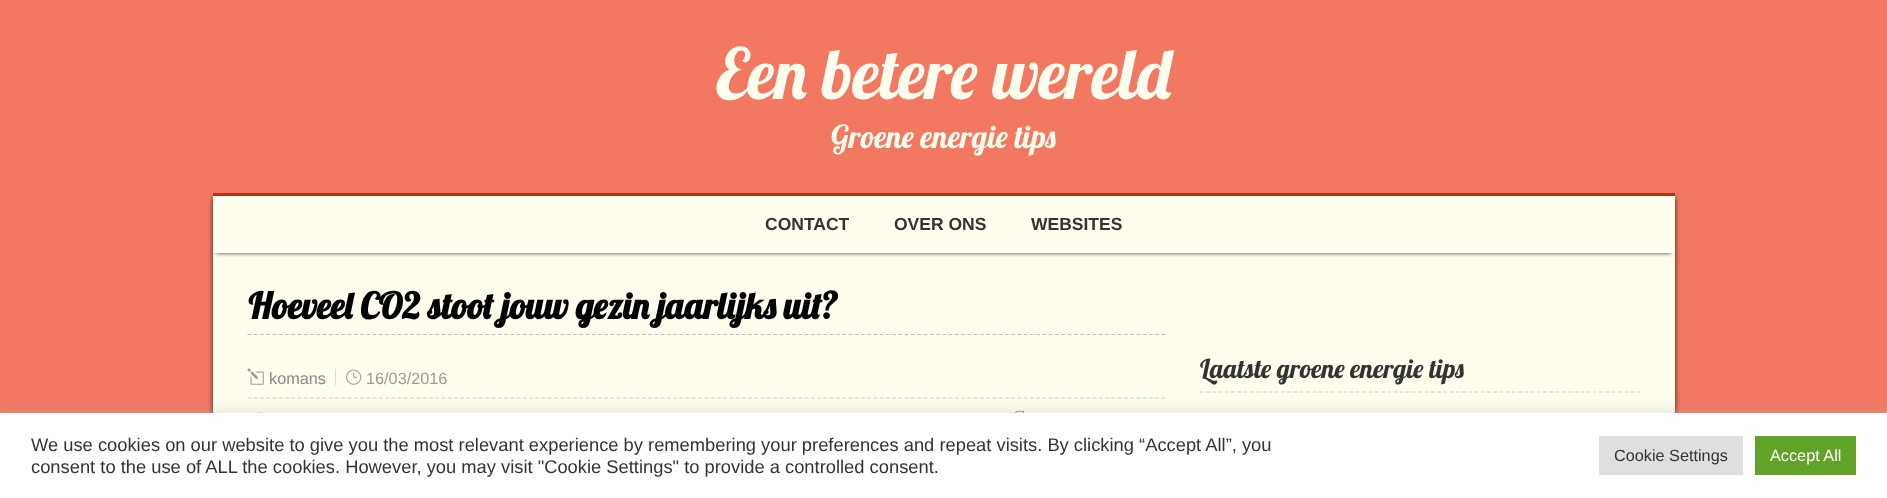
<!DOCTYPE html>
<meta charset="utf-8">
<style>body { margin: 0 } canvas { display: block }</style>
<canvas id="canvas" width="1887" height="498"></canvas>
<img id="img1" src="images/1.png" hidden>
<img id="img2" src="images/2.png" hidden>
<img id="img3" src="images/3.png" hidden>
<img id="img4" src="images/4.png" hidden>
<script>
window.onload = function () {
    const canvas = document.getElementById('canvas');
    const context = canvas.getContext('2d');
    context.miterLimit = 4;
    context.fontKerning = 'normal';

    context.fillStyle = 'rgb(242, 120, 98)';
    context.fillRect(0, 0, 1887, 498);
    context.fillStyle = 'rgb(34, 34, 34)';
    context.filter = 'blur(2.5px)';
    context.beginPath();
    context.rect(213, 198, 1452, 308);
    context.fill();
    context.filter = 'none';
    context.filter = 'blur(2.5px)';
    context.beginPath();
    context.rect(223, 198, 1452, 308);
    context.fill();
    context.filter = 'none';
    context.fillStyle = 'rgb(255, 253, 238)';
    context.fillRect(213, 253, 1462, 160);
    context.fillStyle = 'rgb(176, 52, 29)';
    context.fillRect(213, 193, 1462, 3);
    context.fillStyle = 'rgb(51, 51, 51)';
    context.filter = 'blur(2px)';
    context.beginPath();
    context.rect(216, 204, 1455, 49);
    context.fill();
    context.filter = 'none';
    context.fillStyle = 'rgb(255, 253, 238)';
    context.fillRect(213, 196, 1462, 57);
    context.beginPath();
    context.moveTo(247.5, 334.5);
    context.lineTo(1165, 334.5);
    context.strokeStyle = 'rgb(187, 187, 187)';
    context.lineWidth = 1.2;
    context.setLineDash([3.75, 2.51]);
    context.stroke();
    context.drawImage(document.getElementById('img1'), 247, 368, 17, 17);
    context.drawImage(document.getElementById('img2'), 346, 369, 16, 16);
    context.fillStyle = 'rgb(219, 219, 219)';
    context.fillRect(335, 369, 1, 16);
    context.beginPath();
    context.moveTo(247.5, 398);
    context.lineTo(1165, 398);
    context.strokeStyle = 'rgb(204, 204, 204)';
    context.stroke();
    context.drawImage(document.getElementById('img3'), 257, 412, 7, 1);
    context.drawImage(document.getElementById('img4'), 1014, 410, 10, 3);
    context.beginPath();
    context.moveTo(1200, 392);
    context.lineTo(1640, 392);
    context.setLineDash([3.75, 2.49]);
    context.stroke();
    context.fillStyle = 'rgba(172, 171, 171, 0.3)';
    context.filter = 'blur(6px)';
    context.beginPath();
    context.rect(0, 411, 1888, 87);
    context.fill();
    context.filter = 'none';
    context.fillStyle = 'rgb(255, 255, 255)';
    context.fillRect(0, 413, 1887, 85);
    context.fillStyle = 'rgb(222, 223, 224)';
    context.fillRect(1599, 436, 144, 39);
    context.fillStyle = 'rgb(97, 162, 41)';
    context.fillRect(1755, 436, 101, 39);
    context.font = '70px Lobster';
    context.fillStyle = 'rgb(255, 253, 238)';
    context.fillText('Een betere wereld', 716, 99);
    context.font = '31.25px Lobster';
    context.fillText('Groene energie tips', 831, 148);
    context.font = 'bold 17.5px Liberation Sans';
    context.fillStyle = 'rgb(51, 51, 51)';
    context.fillText('CONTACT', 765, 230);
    context.fillText('OVER ONS', 894, 230);
    context.fillText('WEBSITES', 1031, 230);
    context.font = 'bold 36.25px Lobster';
    context.fillStyle = 'rgb(0, 0, 0)';
    context.fillText('Hoeveel CO2 stoot jouw gezin jaarlijks uit?', 248, 319);
    context.font = '16.25px Liberation Sans';
    context.fillStyle = 'rgb(136, 136, 136)';
    context.fillText('komans', 269, 384);
    context.fillStyle = 'rgb(153, 153, 153)';
    context.fillText('16/03/2016', 366, 384);
    context.font = '26.25px Lobster';
    context.fillStyle = 'rgb(51, 51, 51)';
    context.fillText('Laatste groene energie tips', 1200, 378);
    context.font = '18.33px Liberation Sans';
    context.fillText('We use cookies on our website to give you the most relevant experience by remembering your preferences and repeat visits. By clicking “Accept All”, you', 31, 451);
    context.fillText('consent to the use of ALL the cookies. However, you may visit "Cookie Settings" to provide a controlled consent.', 31, 473);
    context.font = '16.25px Liberation Sans';
    context.fillText('Cookie Settings', 1614, 461);
    context.fillStyle = 'rgb(255, 255, 255)';
    context.fillText('Accept All', 1770, 461);
};
</script>
